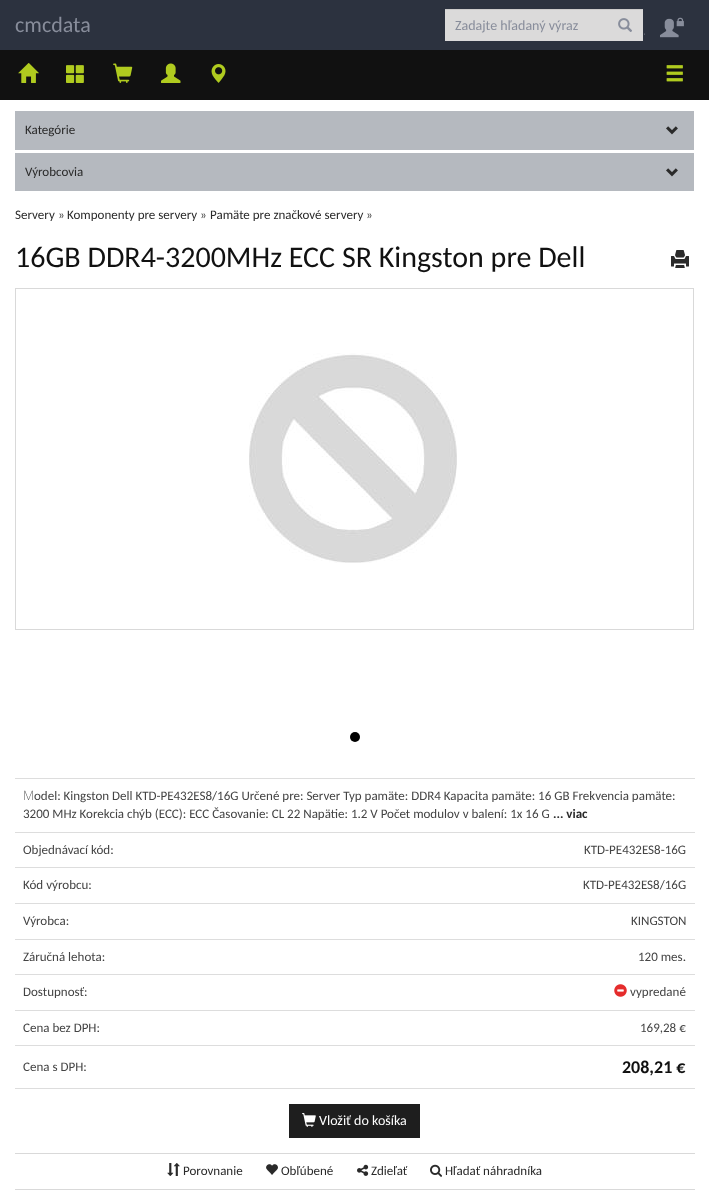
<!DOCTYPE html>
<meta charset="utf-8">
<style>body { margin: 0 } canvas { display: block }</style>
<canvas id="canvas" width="709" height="1191"></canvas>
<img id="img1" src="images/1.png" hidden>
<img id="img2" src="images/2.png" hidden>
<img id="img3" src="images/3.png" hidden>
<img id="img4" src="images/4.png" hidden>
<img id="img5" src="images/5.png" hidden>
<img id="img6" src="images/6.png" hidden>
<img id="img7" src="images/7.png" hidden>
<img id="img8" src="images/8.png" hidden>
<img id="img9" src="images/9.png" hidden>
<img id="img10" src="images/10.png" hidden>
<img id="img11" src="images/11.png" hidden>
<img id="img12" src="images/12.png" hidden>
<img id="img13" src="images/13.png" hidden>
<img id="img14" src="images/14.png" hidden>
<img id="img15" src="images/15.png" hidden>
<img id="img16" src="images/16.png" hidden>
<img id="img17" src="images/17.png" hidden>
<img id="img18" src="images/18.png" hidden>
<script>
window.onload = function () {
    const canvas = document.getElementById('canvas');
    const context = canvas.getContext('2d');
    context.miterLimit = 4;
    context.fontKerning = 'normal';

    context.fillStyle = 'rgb(255, 255, 255)';
    context.fillRect(0, 0, 709, 1191);
    context.fillStyle = 'rgb(44, 50, 63)';
    context.fillRect(0, 0, 709, 50);
    context.fillStyle = 'rgb(219, 218, 218)';
    context.fillRect(445, 10, 198, 31);
    context.fillStyle = 'rgb(203, 202, 202)';
    context.fillRect(445, 9, 198, 1);
    context.drawImage(document.getElementById('img1'), 618, 18, 14, 14);
    context.drawImage(document.getElementById('img2'), 660, 17, 24, 21);
    context.drawImage(document.getElementById('img3'), 644, 33, 1, 2);
    context.fillStyle = 'rgb(17, 17, 17)';
    context.fillRect(0, 50, 709, 50);
    context.drawImage(document.getElementById('img4'), 18, 63, 21, 20);
    context.drawImage(document.getElementById('img5'), 66, 65, 18, 18);
    context.drawImage(document.getElementById('img6'), 113, 63, 20, 20);
    context.drawImage(document.getElementById('img7'), 161, 63, 20, 20);
    context.drawImage(document.getElementById('img8'), 211, 64, 15, 19);
    context.drawImage(document.getElementById('img9'), 666, 65, 17, 17);
    context.fillStyle = 'rgb(181, 185, 191)';
    context.fillRect(15, 111, 679, 39);
    context.drawImage(document.getElementById('img10'), 666, 126, 12, 9);
    context.fillRect(15, 153, 679, 38);
    context.drawImage(document.getElementById('img10'), 666, 168, 12, 9);
    context.drawImage(document.getElementById('img11'), 671, 250, 18, 18);
    context.strokeStyle = 'rgb(217, 217, 217)';
    context.strokeRect(15.5, 288.5, 678, 341);
    context.drawImage(document.getElementById('img12'), 249, 353, 208, 210);
    context.fillStyle = 'rgb(0, 0, 0)';
    context.beginPath();
    context.arc(355, 737, 5, 0, 2 * Math.PI);
    context.fill();
    context.fillStyle = 'rgb(221, 221, 221)';
    context.fillRect(15, 778, 680, 1);
    context.fillRect(15, 832, 680, 1);
    context.fillRect(15, 867, 680, 1);
    context.fillRect(15, 903, 680, 1);
    context.fillRect(15, 939, 680, 1);
    context.fillRect(15, 974, 680, 1);
    context.drawImage(document.getElementById('img13'), 614, 984, 13, 13);
    context.fillRect(15, 1010, 680, 1);
    context.fillRect(15, 1045, 680, 1);
    context.fillRect(15, 1088, 680, 1);
    context.fillStyle = 'rgb(30, 30, 30)';
    context.fillRect(289, 1104, 131, 34);
    context.drawImage(document.getElementById('img14'), 302, 1113, 14, 14);
    context.fillStyle = 'rgb(217, 217, 217)';
    context.fillRect(15, 1153, 680, 1);
    context.fillRect(15, 1189, 680, 1);
    context.drawImage(document.getElementById('img15'), 167, 1163, 13, 13);
    context.drawImage(document.getElementById('img16'), 266, 1164, 12, 11);
    context.drawImage(document.getElementById('img17'), 357, 1164, 12, 12);
    context.drawImage(document.getElementById('img18'), 430, 1164, 12, 13);
    context.font = '22px Carlito';
    context.fillStyle = 'rgb(136, 141, 155)';
    context.fillText('cmcdata', 15, 32);
    context.font = '14px Carlito';
    context.fillText('Zadajte hľadaný výraz', 455, 30);
    context.font = '13px Carlito';
    context.fillStyle = 'rgb(42, 42, 42)';
    context.fillText('Kategórie', 25, 134);
    context.fillText('Výrobcovia', 25, 176);
    context.fillText('Servery', 15, 219);
    context.fillStyle = 'rgb(68, 68, 68)';
    context.fillText('»', 58, 219);
    context.fillStyle = 'rgb(42, 42, 42)';
    context.fillText('Komponenty pre servery', 67, 219);
    context.fillStyle = 'rgb(68, 68, 68)';
    context.fillText('»', 200, 219);
    context.fillStyle = 'rgb(42, 42, 42)';
    context.fillText('Pamäte pre značkové servery', 210, 219);
    context.fillStyle = 'rgb(68, 68, 68)';
    context.fillText('»', 366, 219);
    context.font = '30px Carlito';
    context.fillStyle = 'rgb(17, 17, 17)';
    context.fillText('16GB DDR4-3200MHz ECC SR Kingston pre Dell', 15, 267);
    context.font = '200 13px Noto Sans';
    context.fillStyle = 'rgb(68, 68, 68)';
    context.fillText('M', 23, 800);
    context.font = '13px Carlito';
    context.fillText('odel: Kingston Dell KTD-PE432ES8/16G Určené pre: Server Typ pamäte: DDR4 Kapacita pamäte: 16 GB Frekvencia pamäte:', 34, 800);
    context.fillText('3200 MHz Korekcia chýb (ECC): ECC Časovanie: CL 22 Napätie: 1.2 V Počet modulov v balení: 1x 16 G', 23, 818);
    context.font = 'bold 13px Carlito';
    context.fillStyle = 'rgb(42, 42, 42)';
    context.fillText('... viac', 553, 818);
    context.font = '13px Carlito';
    context.fillStyle = 'rgb(68, 68, 68)';
    context.fillText('Objednávací kód:', 23, 854);
    context.fillText('KTD-PE432ES8-16G', 584, 854);
    context.fillText('Kód výrobcu:', 23, 889);
    context.fillText('KTD-PE432ES8/16G', 583, 889);
    context.fillText('Výrobca:', 23, 925);
    context.fillText('KINGSTON', 631, 925);
    context.fillText('Záručná lehota:', 23, 961);
    context.fillText('120 mes.', 638, 961);
    context.fillText('Dostupnosť:', 23, 996);
    context.fillText('vypredané', 630, 996);
    context.fillText('Cena bez DPH:', 23, 1032);
    context.fillText('169,28 €', 640, 1032);
    context.fillText('Cena s DPH:', 23, 1071);
    context.font = 'bold 18px Carlito';
    context.fillStyle = 'rgb(17, 17, 17)';
    context.fillText('208,21 €', 622, 1073);
    context.font = '14px Carlito';
    context.fillStyle = 'rgb(255, 255, 255)';
    context.fillText('Vložiť do košíka', 319, 1125);
    context.font = '13px Carlito';
    context.fillStyle = 'rgb(42, 42, 42)';
    context.fillText('Porovnanie', 183, 1175);
    context.fillText('Obľúbené', 281, 1175);
    context.fillText('Zdieľať', 371, 1175);
    context.fillText('Hľadať náhradníka', 445, 1175);
};
</script>
